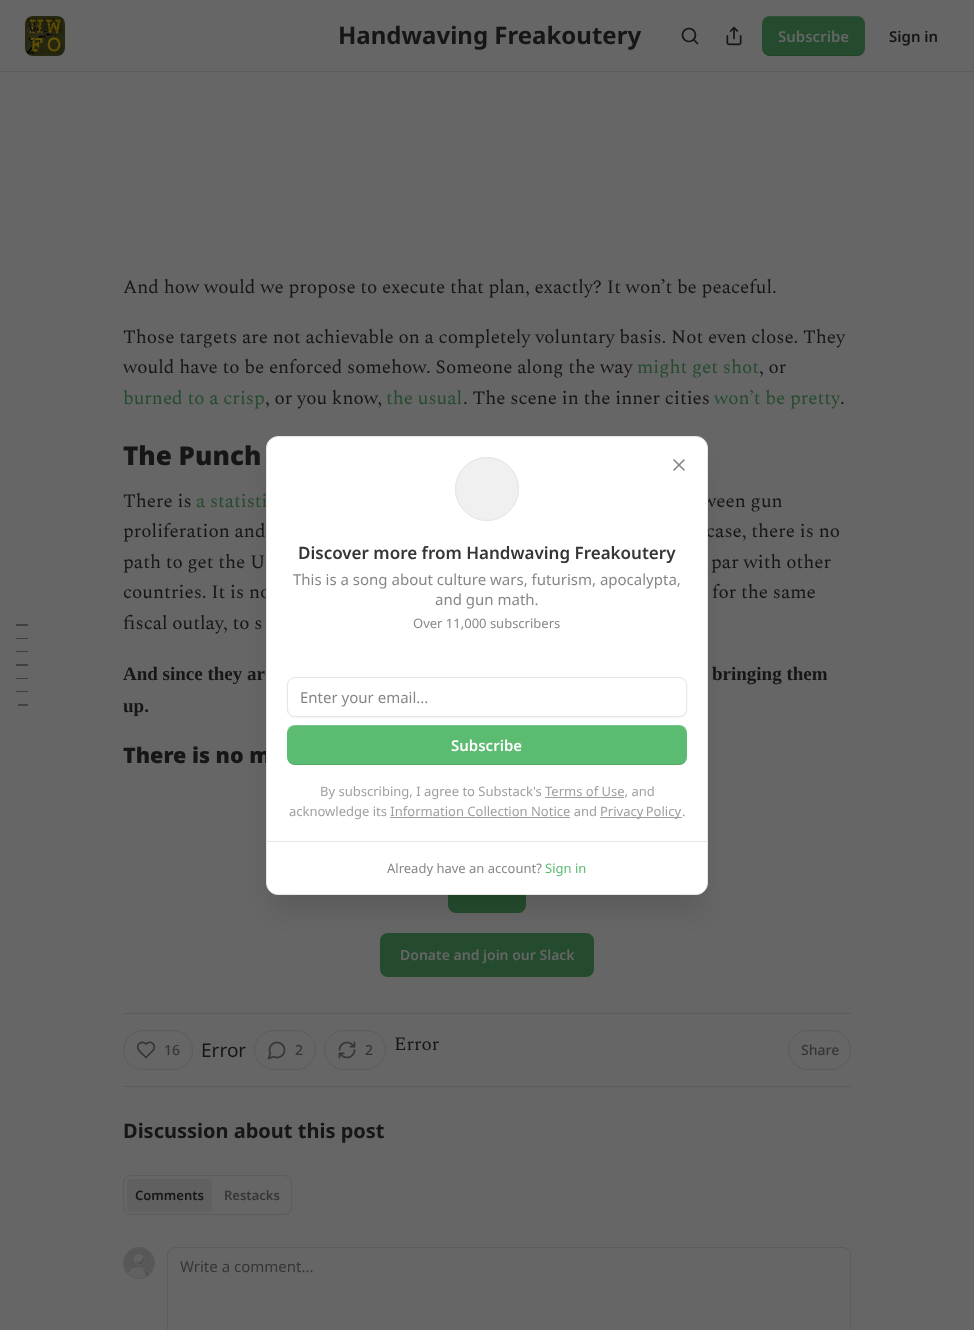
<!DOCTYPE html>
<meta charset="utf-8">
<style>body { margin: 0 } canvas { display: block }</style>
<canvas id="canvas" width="974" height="1330"></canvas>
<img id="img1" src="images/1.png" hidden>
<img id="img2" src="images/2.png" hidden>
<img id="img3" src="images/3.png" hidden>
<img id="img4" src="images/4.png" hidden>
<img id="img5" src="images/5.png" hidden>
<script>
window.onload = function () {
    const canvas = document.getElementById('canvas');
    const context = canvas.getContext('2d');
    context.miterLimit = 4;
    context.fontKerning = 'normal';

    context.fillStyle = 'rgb(102, 102, 102)';
    context.fillRect(0, 0, 974, 1330);
    context.fillStyle = 'rgb(92, 92, 92)';
    context.fillRect(0, 71, 974, 1);
    context.drawImage(document.getElementById('img1'), 25, 16, 40, 40);
    context.beginPath();
    context.arc(689, 35, 6.5, 0, 2 * Math.PI);
    context.strokeStyle = 'rgb(22, 22, 22)';
    context.lineWidth = 1.7;
    context.stroke();
    context.beginPath();
    context.moveTo(697.5, 43.5);
    context.lineTo(694, 40);
    context.lineCap = 'round';
    context.lineJoin = 'round';
    context.stroke();
    context.drawImage(document.getElementById('img2'), 726, 26, 16, 20);
    context.fillStyle = 'rgb(36, 75, 45)';
    context.beginPath();
    context.roundRect(762, 16, 103, 40, 8);
    context.fill();
    context.fillStyle = 'rgba(0, 0, 0, 0.1)';
    context.beginPath();
    context.moveTo(762, 47);
    context.bezierCurveTo(762, 59, 776, 56, 784, 56);
    context.lineTo(842, 56);
    context.bezierCurveTo(851, 56, 865, 59, 865, 47);
    context.bezierCurveTo(865, 51, 861, 55, 857, 55);
    context.lineTo(770, 55);
    context.bezierCurveTo(766, 55, 762, 51, 762, 47);
    context.closePath();
    context.fill();
    context.fillStyle = 'rgba(102, 102, 102, 0.2)';
    context.beginPath();
    context.moveTo(770, 17);
    context.lineTo(857, 17);
    context.bezierCurveTo(861, 17, 865, 21, 865, 25);
    context.bezierCurveTo(865, 13, 851, 16, 842, 16);
    context.lineTo(784, 16);
    context.bezierCurveTo(776, 16, 762, 13, 762, 25);
    context.bezierCurveTo(762, 21, 766, 17, 770, 17);
    context.closePath();
    context.fill();
    context.fillStyle = 'rgb(63, 64, 64)';
    context.fillRect(16, 624, 12, 2);
    context.fillRect(16, 638, 12, 1);
    context.fillRect(16, 651, 12, 1);
    context.fillRect(16, 664, 12, 2);
    context.fillRect(16, 678, 12, 1);
    context.fillRect(16, 691, 12, 1);
    context.fillStyle = 'rgb(67, 67, 67)';
    context.fillRect(18, 704, 10, 2);
    context.fillStyle = 'rgb(36, 75, 45)';
    context.beginPath();
    context.roundRect(448, 869, 78, 44, 8);
    context.fill();
    context.beginPath();
    context.roundRect(380, 933, 214, 44, 8);
    context.fill();
    context.fillStyle = 'rgb(92, 92, 92)';
    context.fillRect(123, 1013, 728, 1);
    context.fillRect(123, 1086, 728, 1);
    context.beginPath();
    context.roundRect(123.5, 1030.5, 69, 39, 19.5);
    context.strokeStyle = 'rgb(92, 92, 92)';
    context.lineWidth = 1;
    context.lineJoin = 'miter';
    context.stroke();
    context.beginPath();
    context.moveTo(152, 1051.5);
    context.bezierCurveTo(158, 1045.5, 151, 1039.5, 146, 1044);
    context.bezierCurveTo(142.5, 1040.5, 136.5, 1043.5, 138, 1048.5);
    context.bezierCurveTo(139, 1051.5, 144, 1055.5, 146, 1057.5);
    context.closePath();
    context.strokeStyle = 'rgb(54, 54, 54)';
    context.lineWidth = 1.7;
    context.lineJoin = 'round';
    context.stroke();
    context.beginPath();
    context.roundRect(254.5, 1030.5, 61, 39, 19.5);
    context.strokeStyle = 'rgb(92, 92, 92)';
    context.lineWidth = 1;
    context.lineJoin = 'miter';
    context.stroke();
    context.drawImage(document.getElementById('img3'), 267, 1041, 19, 19);
    context.beginPath();
    context.roundRect(324.5, 1030.5, 61, 39, 19.5);
    context.stroke();
    context.drawImage(document.getElementById('img4'), 338, 1041, 18, 18);
    context.beginPath();
    context.roundRect(788.5, 1030.5, 62, 39, 19.5);
    context.stroke();
    context.fillStyle = 'rgba(0, 0, 0, 0.1)';
    context.filter = 'blur(12.5px)';
    context.beginPath();
    context.roundRect(271, 461, 432, 449, 7);
    context.fill();
    context.filter = 'none';
    context.beginPath();
    context.roundRect(123.5, 1175.5, 168, 39, 7.5);
    context.stroke();
    context.fillStyle = 'rgb(96, 96, 96)';
    context.beginPath();
    context.roundRect(127, 1179, 85, 32, 4);
    context.fill();
    context.beginPath();
    context.arc(139, 1263, 15.5, 0, 2 * Math.PI);
    context.stroke();
    context.drawImage(document.getElementById('img5'), 123, 1247, 32, 32);
    context.beginPath();
    context.arc(139, 1263, 15.5, 0, 2 * Math.PI);
    context.stroke();
    context.beginPath();
    context.roundRect(167.5, 1247.5, 683, 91, 7.5);
    context.stroke();
    context.font = 'bold 24px Noto Sans';
    context.fillStyle = 'rgb(22, 22, 22)';
    context.fillText('Handwaving Freakoutery', 338, 44);
    context.font = '600 15px Noto Sans';
    context.fillStyle = 'rgb(102, 102, 102)';
    context.fillText('Subscribe', 778, 42);
    context.fillStyle = 'rgb(22, 22, 22)';
    context.fillText('Sign in', 889, 42);
    context.font = '19px Spectral';
    context.fillText('And how would we propose to execute that plan, exactly? It won’t be peaceful.', 123, 293);
    context.fillText('Those targets are not achievable on a completely voluntary basis. Not even close. They', 123, 343);
    context.fillText('would have to be enforced somehow. Someone along the way', 123, 373);
    context.fillStyle = 'rgb(36, 75, 45)';
    context.fillText('might get shot', 637, 373);
    context.fillStyle = 'rgb(22, 22, 22)';
    context.fillText(', or', 759, 373);
    context.fillStyle = 'rgb(36, 75, 45)';
    context.fillText('burned to a crisp', 123, 404);
    context.fillStyle = 'rgb(22, 22, 22)';
    context.fillText(', or you know,', 265, 404);
    context.fillStyle = 'rgb(36, 75, 45)';
    context.fillText('the usual', 386, 404);
    context.fillStyle = 'rgb(22, 22, 22)';
    context.fillText('. The scene in the inner cities', 463, 404);
    context.fillStyle = 'rgb(36, 75, 45)';
    context.fillText('won’t be pretty', 714, 404);
    context.fillStyle = 'rgb(22, 22, 22)';
    context.fillText('.', 840, 404);
    context.font = '900 26px Noto Sans';
    context.fillText('The Punch', 123, 465);
    context.font = '19px Spectral';
    context.fillText('There is', 123, 507);
    context.fillStyle = 'rgb(36, 75, 45)';
    context.fillText('a statisti', 196, 507);
    context.fillStyle = 'rgb(22, 22, 22)';
    context.fillText('ween gun', 702, 507);
    context.fillText('proliferation and', 123, 537);
    context.fillText('case, there is no', 706, 537);
    context.fillText('path to get the U', 123, 568);
    context.fillText('par with other', 711, 568);
    context.fillText('countries. It is no', 123, 598);
    context.fillText('for the same', 712, 598);
    context.fillText('fiscal outlay, to s', 123, 629);
    context.font = 'bold 19px Liberation Serif';
    context.fillText('And since they ar', 123, 680);
    context.fillText('bringing them', 712, 680);
    context.fillText('up.', 123, 712);
    context.font = '900 21.5px Noto Sans';
    context.fillText('There is no m', 123, 763);
    context.font = '600 14px Noto Sans';
    context.fillStyle = 'rgb(102, 102, 102)';
    context.fillText('Donate and join our Slack', 400, 960);
    context.font = '500 14px Noto Sans';
    context.fillStyle = 'rgb(54, 54, 54)';
    context.fillText('16', 164, 1055);
    context.font = '19px Noto Sans';
    context.fillStyle = 'rgb(22, 22, 22)';
    context.fillText('Error', 201, 1057);
    context.font = '500 14px Noto Sans';
    context.fillStyle = 'rgb(54, 54, 54)';
    context.fillText('2', 295, 1055);
    context.fillText('2', 365, 1055);
    context.font = '19px Spectral';
    context.fillStyle = 'rgb(22, 22, 22)';
    context.fillText('Error', 394, 1050);
    context.font = '500 14px Noto Sans';
    context.fillStyle = 'rgb(54, 54, 54)';
    context.fillText('Share', 801, 1055);
    context.fillStyle = 'rgb(255, 255, 255)';
    context.beginPath();
    context.roundRect(266.5, 436.5, 441, 458, 11.5);
    context.fill();
    context.strokeStyle = 'rgb(230, 230, 230)';
    context.stroke();
    context.beginPath();
    context.arc(487, 489, 31.5, 0, 2 * Math.PI);
    context.stroke();
    context.fillStyle = 'rgb(240, 240, 240)';
    context.beginPath();
    context.arc(487, 489, 31.5, 0, 2 * Math.PI);
    context.fill();
    context.stroke();
    context.beginPath();
    context.moveTo(684, 460);
    context.lineTo(674, 470);
    context.moveTo(674, 460);
    context.lineTo(684, 470);
    context.strokeStyle = 'rgb(134, 135, 135)';
    context.lineWidth = 1.7;
    context.lineJoin = 'round';
    context.stroke();
    context.font = '600 17px Noto Sans';
    context.fillStyle = 'rgb(54, 54, 54)';
    context.fillText('Discover more from Handwaving Freakoutery', 298, 559);
    context.font = '15px Noto Sans';
    context.fillStyle = 'rgb(134, 135, 135)';
    context.fillText('This is a song about culture wars, futurism, apocalypta,', 293, 585);
    context.fillText('and gun math.', 435, 605);
    context.font = '13px Noto Sans';
    context.fillText('Over 11,000 subscribers', 413, 628);
    context.fillStyle = 'rgba(0, 0, 0, 0.05)';
    context.filter = 'blur(1px)';
    context.beginPath();
    context.roundRect(287, 678, 400, 40, 8);
    context.fill();
    context.filter = 'none';
    context.fillStyle = 'rgb(255, 255, 255)';
    context.beginPath();
    context.roundRect(287.5, 677.5, 399, 39, 7.5);
    context.fill();
    context.strokeStyle = 'rgb(230, 230, 230)';
    context.lineWidth = 1;
    context.lineJoin = 'miter';
    context.stroke();
    context.font = '15px Noto Sans';
    context.fillStyle = 'rgb(134, 135, 135)';
    context.fillText('Enter your email...', 300, 703);
    context.fillStyle = 'rgb(90, 187, 113)';
    context.beginPath();
    context.roundRect(287, 725, 400, 40, 8);
    context.fill();
    context.fillStyle = 'rgba(0, 0, 0, 0.1)';
    context.beginPath();
    context.moveTo(287, 756);
    context.lineTo(287, 757);
    context.bezierCurveTo(287, 761, 291, 765, 295, 765);
    context.lineTo(679, 765);
    context.bezierCurveTo(683, 765, 687, 761, 687, 757);
    context.lineTo(687, 756);
    context.bezierCurveTo(687, 760, 683, 764, 679, 764);
    context.lineTo(295, 764);
    context.bezierCurveTo(291, 764, 287, 760, 287, 756);
    context.closePath();
    context.fill();
    context.fillStyle = 'rgba(255, 255, 255, 0.2)';
    context.beginPath();
    context.moveTo(295, 726);
    context.lineTo(679, 726);
    context.bezierCurveTo(683, 726, 687, 730, 687, 734);
    context.lineTo(687, 733);
    context.bezierCurveTo(687, 729, 683, 725, 679, 725);
    context.lineTo(295, 725);
    context.bezierCurveTo(291, 725, 287, 729, 287, 733);
    context.lineTo(287, 734);
    context.bezierCurveTo(287, 730, 291, 726, 295, 726);
    context.closePath();
    context.fill();
    context.font = '600 15px Noto Sans';
    context.fillStyle = 'rgb(255, 255, 255)';
    context.fillText('Subscribe', 451, 751);
    context.font = '13px Noto Sans';
    context.fillStyle = 'rgb(158, 159, 159)';
    context.fillText('By subscribing, I agree to Substack\'s Terms of Use, and', 320, 796);
    context.fillRect(545, 797, 79, 1);
    context.fillText('acknowledge its Information Collection Notice and', 289, 816);
    context.fillRect(600, 817, 82, 1);
    context.wordSpacing = '-1px';
    context.fillText('Privacy Policy', 600, 816);
    context.wordSpacing = '0px';
    context.fillText('.', 682, 816);
    context.fillRect(390, 817, 180, 1);
    context.fillStyle = 'rgb(230, 230, 230)';
    context.fillRect(267, 841, 440, 1);
    context.fillStyle = 'rgb(134, 135, 135)';
    context.fillText('Already have an account?', 387, 873);
    context.fillStyle = 'rgb(90, 187, 113)';
    context.fillText('Sign in', 545, 873);
    context.font = 'bold 20px Noto Sans';
    context.fillStyle = 'rgb(22, 22, 22)';
    context.fillText('Discussion about this post', 123, 1138);
    context.font = '600 13px Noto Sans';
    context.fillText('Comments', 135, 1200);
    context.fillStyle = 'rgb(54, 54, 54)';
    context.fillText('Restacks', 224, 1200);
    context.font = '15px Noto Sans';
    context.fillText('Write a comment...', 180, 1272);
};
</script>
